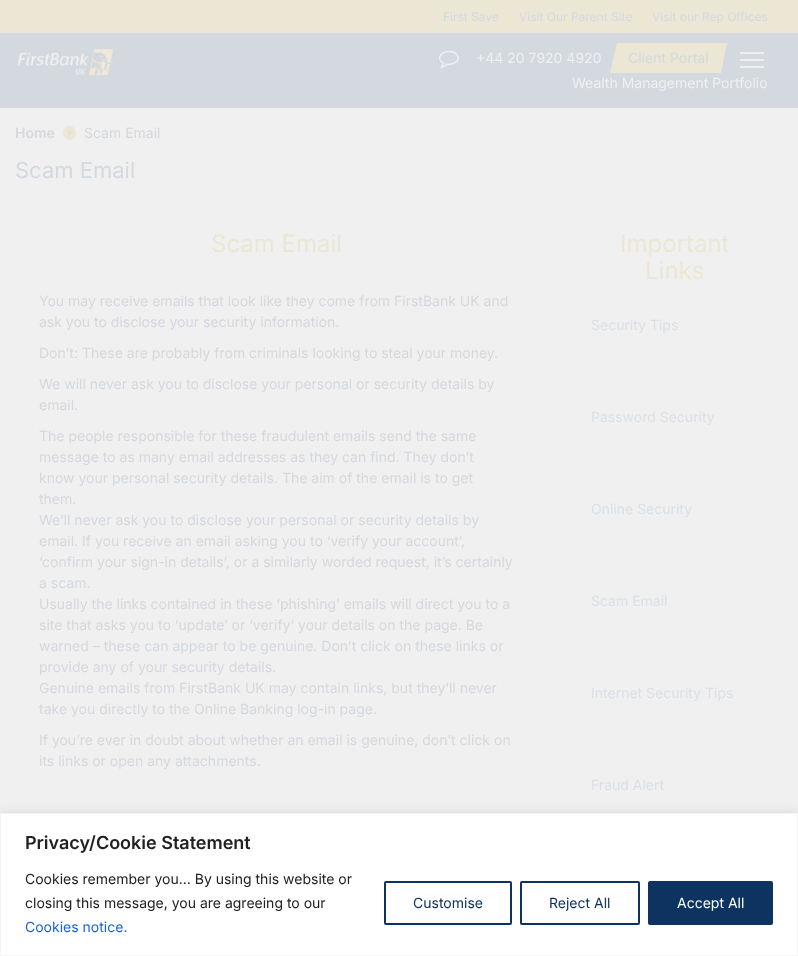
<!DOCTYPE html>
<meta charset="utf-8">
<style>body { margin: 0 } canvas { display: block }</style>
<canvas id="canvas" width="798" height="956"></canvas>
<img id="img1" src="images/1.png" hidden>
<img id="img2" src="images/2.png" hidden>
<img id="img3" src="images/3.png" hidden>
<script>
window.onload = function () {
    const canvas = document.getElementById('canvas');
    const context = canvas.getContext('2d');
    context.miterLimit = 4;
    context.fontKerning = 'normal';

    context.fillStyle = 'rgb(240, 240, 240)';
    context.fillRect(0, 0, 798, 956);
    context.fillStyle = 'rgb(236, 231, 213)';
    context.fillRect(0, 0, 798, 33);
    context.fillStyle = 'rgb(212, 217, 223)';
    context.fillRect(0, 33, 798, 75);
    context.drawImage(document.getElementById('img1'), 17, 48, 97, 28);
    context.drawImage(document.getElementById('img2'), 439, 50, 20, 18);
    context.fillStyle = 'rgb(236, 231, 213)';
    context.beginPath();
    context.moveTo(617, 43);
    context.lineTo(727, 43);
    context.lineTo(721, 73);
    context.lineTo(610, 73);
    context.closePath();
    context.fill();
    context.fillStyle = 'rgb(240, 240, 240)';
    context.fillRect(740, 52, 24, 2);
    context.fillRect(740, 59, 24, 2);
    context.fillRect(740, 66, 24, 2);
    context.fillStyle = 'rgb(236, 231, 213)';
    context.beginPath();
    context.roundRect(63, 126, 13, 14, 6.5);
    context.fill();
    context.drawImage(document.getElementById('img3'), 68, 130, 4, 6);
    context.fillStyle = 'rgba(172, 171, 171, 0.3)';
    context.filter = 'blur(5px)';
    context.beginPath();
    context.rect(0, 812, 798, 143);
    context.fill();
    context.filter = 'none';
    context.fillStyle = 'rgb(255, 255, 255)';
    context.beginPath();
    context.rect(0.5, 813.5, 797, 142);
    context.fill();
    context.strokeStyle = 'rgb(244, 244, 244)';
    context.stroke();
    context.beginPath();
    context.roundRect(385, 882, 126, 42, 1);
    context.strokeStyle = 'rgb(13, 51, 96)';
    context.lineWidth = 2;
    context.stroke();
    context.beginPath();
    context.roundRect(521, 882, 118, 42, 1);
    context.stroke();
    context.fillStyle = 'rgb(13, 51, 96)';
    context.beginPath();
    context.roundRect(649, 882, 123, 42, 1);
    context.fill();
    context.stroke();
    context.font = '12px Inter';
    context.fillStyle = 'rgb(212, 217, 223)';
    context.fillText('First Save', 443, 21);
    context.fillText('Visit Our Parent Site', 519, 21);
    context.fillText('Visit our Rep Offices', 652, 21);
    context.font = '14px Inter';
    context.fillStyle = 'rgb(240, 240, 240)';
    context.fillText('+44 20 7920 4920', 476, 63);
    context.fillStyle = 'rgb(212, 217, 223)';
    context.fillText('Client Portal', 628, 63);
    context.fillStyle = 'rgb(240, 240, 240)';
    context.fillText('Wealth Management Portfolio', 572, 88);
    context.font = '600 14px Inter';
    context.fillStyle = 'rgb(212, 217, 223)';
    context.fillText('Home', 15, 138);
    context.font = '14px Inter';
    context.fillText('Scam Email', 84, 138);
    context.font = '22px Inter';
    context.fillText('Scam Email', 15, 178);
    context.font = '24px Inter';
    context.fillStyle = 'rgb(236, 231, 213)';
    context.fillText('Scam Email', 211, 252);
    context.font = '14px Inter';
    context.fillStyle = 'rgb(212, 217, 223)';
    context.fillText('You may receive emails that look like they come from FirstBank UK and', 39, 306);
    context.fillText('ask you to disclose your security information.', 39, 327);
    context.fillText('Don’t: These are probably from criminals looking to steal your money.', 39, 358);
    context.fillText('We will never ask you to disclose your personal or security details by', 39, 389);
    context.fillText('email.', 39, 410);
    context.fillText('The people responsible for these fraudulent emails send the same', 39, 441);
    context.fillText('message to as many email addresses as they can find. They don’t', 39, 462);
    context.fillText('know your personal security details. The aim of the email is to get', 39, 483);
    context.fillText('them.', 39, 504);
    context.fillText('We’ll never ask you to disclose your personal or security details by', 39, 525);
    context.fillText('email. If you receive an email asking you to ‘verify your account’,', 39, 546);
    context.fillText('‘confirm your sign-in details’, or a similarly worded request, it’s certainly', 39, 567);
    context.fillText('a scam.', 39, 588);
    context.fillText('Usually the links contained in these ‘phishing’ emails will direct you to a', 39, 609);
    context.fillText('site that asks you to ‘update’ or ‘verify’ your details on the page. Be', 39, 630);
    context.fillText('warned – these can appear to be genuine. Don’t click on these links or', 39, 651);
    context.fillText('provide any of your security details.', 39, 672);
    context.fillText('Genuine emails from FirstBank UK may contain links, but they’ll never', 39, 693);
    context.fillText('take you directly to the Online Banking log-in page.', 39, 714);
    context.fillText('If you’re ever in doubt about whether an email is genuine, don’t click on', 39, 745);
    context.fillText('its links or open any attachments.', 39, 766);
    context.font = '24px Inter';
    context.fillStyle = 'rgb(236, 231, 213)';
    context.fillText('Important', 620, 252);
    context.fillText('Links', 645, 279);
    context.font = '14px Inter';
    context.fillStyle = 'rgb(217, 225, 232)';
    context.fillText('Security Tips', 591, 330);
    context.fillText('Password Security', 591, 422);
    context.fillText('Online Security', 591, 514);
    context.fillText('Scam Email', 591, 606);
    context.fillText('Internet Security Tips', 591, 698);
    context.fillText('Fraud Alert', 591, 790);
    context.font = '600 18px Inter';
    context.fillStyle = 'rgb(33, 33, 33)';
    context.fillText('Privacy/Cookie Statement', 25, 849);
    context.font = '14px Inter';
    context.fillText('Cookies remember you… By using this website or', 25, 884);
    context.fillText('closing this message, you are agreeing to our', 25, 908);
    context.fillStyle = 'rgb(24, 99, 220)';
    context.fillText('Cookies notice.', 25, 932);
    context.fillStyle = 'rgb(13, 51, 96)';
    context.fillText('Customise', 413, 908);
    context.fillText('Reject All', 549, 908);
    context.fillStyle = 'rgb(255, 255, 255)';
    context.fillText('Accept All', 677, 908);
};
</script>
